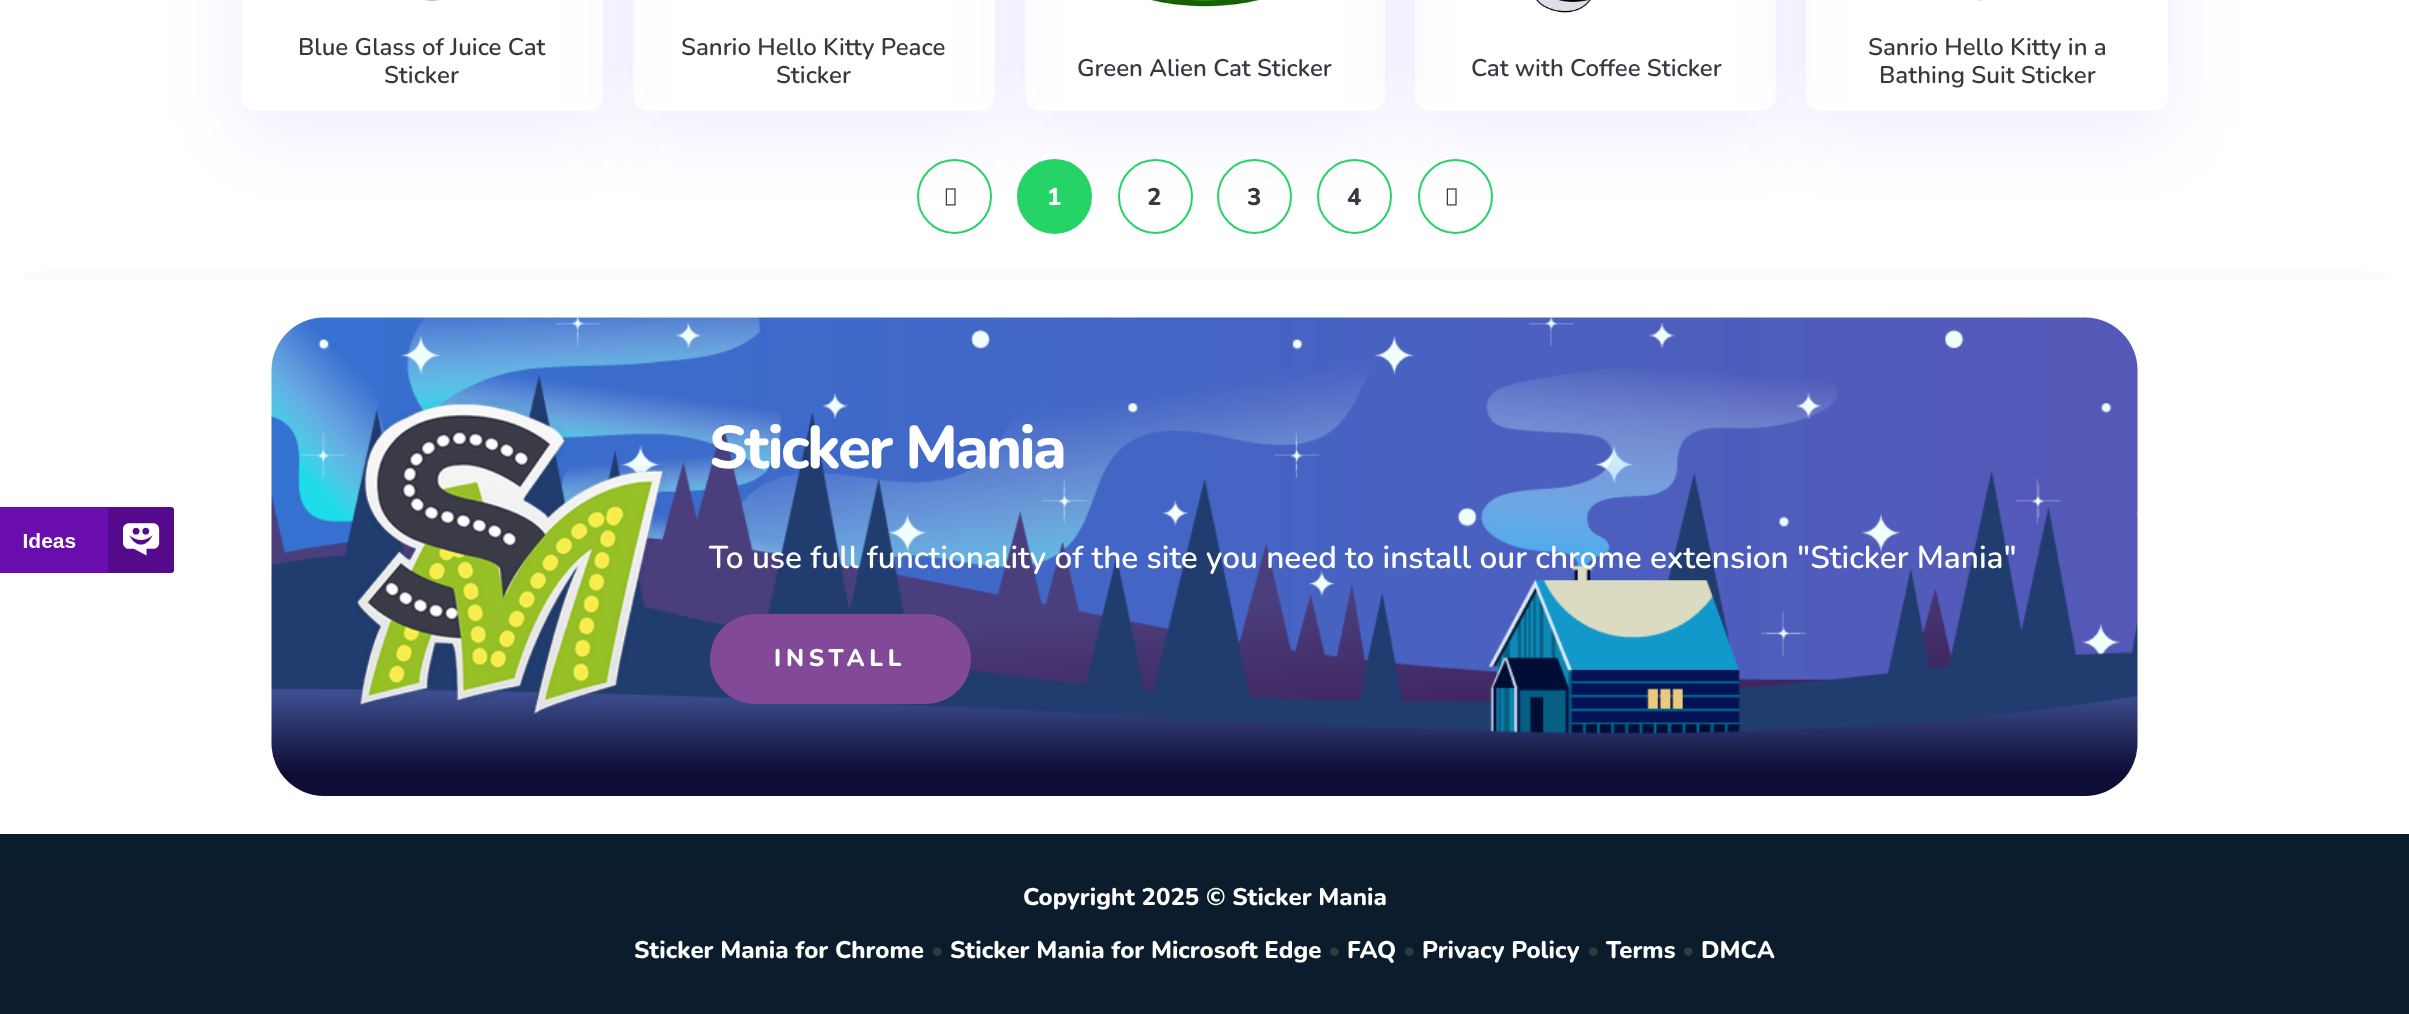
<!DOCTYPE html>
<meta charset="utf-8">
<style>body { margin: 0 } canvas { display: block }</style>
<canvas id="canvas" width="2409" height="1014"></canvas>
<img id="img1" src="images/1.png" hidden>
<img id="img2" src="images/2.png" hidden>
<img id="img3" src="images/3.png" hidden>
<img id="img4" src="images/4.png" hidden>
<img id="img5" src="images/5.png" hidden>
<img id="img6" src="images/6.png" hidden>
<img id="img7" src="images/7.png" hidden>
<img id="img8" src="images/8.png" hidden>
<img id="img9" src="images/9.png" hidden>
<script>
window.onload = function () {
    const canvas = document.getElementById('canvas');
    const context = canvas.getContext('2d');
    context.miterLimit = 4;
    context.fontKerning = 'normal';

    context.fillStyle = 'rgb(255, 255, 255)';
    context.fillRect(0, 0, 2409, 1014);
    context.save();
    context.beginPath();
    context.moveTo(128, 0);
    context.lineTo(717, 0);
    context.lineTo(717, 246);
    context.lineTo(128, 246);
    context.closePath();
    context.moveTo(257, -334);
    context.lineTo(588, -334);
    context.bezierCurveTo(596.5, -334, 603, -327.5, 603, -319);
    context.lineTo(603, 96);
    context.bezierCurveTo(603, 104.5, 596.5, 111, 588, 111);
    context.lineTo(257, 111);
    context.bezierCurveTo(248.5, 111, 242, 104.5, 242, 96);
    context.lineTo(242, -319);
    context.bezierCurveTo(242, -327.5, 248.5, -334, 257, -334);
    context.closePath();
    context.clip('evenodd');
    context.fillStyle = 'rgba(108, 56, 252, 0.1)';
    context.filter = 'blur(37.5px)';
    context.beginPath();
    context.roundRect(242, -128, 361, 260, 15);
    context.fill();
    context.filter = 'none';
    context.restore();
    context.drawImage(document.getElementById('img1'), 425, 0, 14, 1);
    context.save();
    context.beginPath();
    context.moveTo(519, 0);
    context.lineTo(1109, 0);
    context.lineTo(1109, 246);
    context.lineTo(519, 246);
    context.closePath();
    context.moveTo(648, -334);
    context.lineTo(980, -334);
    context.bezierCurveTo(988.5, -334, 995, -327.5, 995, -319);
    context.lineTo(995, 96);
    context.bezierCurveTo(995, 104.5, 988.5, 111, 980, 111);
    context.lineTo(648, 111);
    context.bezierCurveTo(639.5, 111, 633, 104.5, 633, 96);
    context.lineTo(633, -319);
    context.bezierCurveTo(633, -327.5, 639.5, -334, 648, -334);
    context.closePath();
    context.clip('evenodd');
    context.fillStyle = 'rgba(108, 56, 252, 0.1)';
    context.filter = 'blur(37.5px)';
    context.beginPath();
    context.roundRect(633, -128, 362, 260, 15);
    context.fill();
    context.filter = 'none';
    context.restore();
    context.save();
    context.beginPath();
    context.moveTo(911, 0);
    context.lineTo(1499, 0);
    context.lineTo(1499, 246);
    context.lineTo(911, 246);
    context.closePath();
    context.moveTo(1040, -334);
    context.lineTo(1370, -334);
    context.bezierCurveTo(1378.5, -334, 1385, -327.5, 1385, -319);
    context.lineTo(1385, 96);
    context.bezierCurveTo(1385, 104.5, 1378.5, 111, 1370, 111);
    context.lineTo(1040, 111);
    context.bezierCurveTo(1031.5, 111, 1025, 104.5, 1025, 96);
    context.lineTo(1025, -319);
    context.bezierCurveTo(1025, -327.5, 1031.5, -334, 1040, -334);
    context.closePath();
    context.clip('evenodd');
    context.fillStyle = 'rgba(108, 56, 252, 0.1)';
    context.filter = 'blur(37.5px)';
    context.beginPath();
    context.roundRect(1025, -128, 360, 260, 15);
    context.fill();
    context.filter = 'none';
    context.restore();
    context.drawImage(document.getElementById('img2'), 1151, 0, 108, 7);
    context.save();
    context.beginPath();
    context.moveTo(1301, 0);
    context.lineTo(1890, 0);
    context.lineTo(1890, 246);
    context.lineTo(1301, 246);
    context.closePath();
    context.moveTo(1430, -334);
    context.lineTo(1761, -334);
    context.bezierCurveTo(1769.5, -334, 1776, -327.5, 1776, -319);
    context.lineTo(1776, 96);
    context.bezierCurveTo(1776, 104.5, 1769.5, 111, 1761, 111);
    context.lineTo(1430, 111);
    context.bezierCurveTo(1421.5, 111, 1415, 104.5, 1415, 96);
    context.lineTo(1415, -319);
    context.bezierCurveTo(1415, -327.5, 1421.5, -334, 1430, -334);
    context.closePath();
    context.clip('evenodd');
    context.fillStyle = 'rgba(108, 56, 252, 0.1)';
    context.filter = 'blur(37.5px)';
    context.beginPath();
    context.roundRect(1415, -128, 361, 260, 15);
    context.fill();
    context.filter = 'none';
    context.restore();
    context.drawImage(document.getElementById('img3'), 1536, 0, 55, 13);
    context.save();
    context.beginPath();
    context.moveTo(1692, 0);
    context.lineTo(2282, 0);
    context.lineTo(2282, 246);
    context.lineTo(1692, 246);
    context.closePath();
    context.moveTo(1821, -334);
    context.lineTo(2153, -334);
    context.bezierCurveTo(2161.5, -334, 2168, -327.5, 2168, -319);
    context.lineTo(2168, 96);
    context.bezierCurveTo(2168, 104.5, 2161.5, 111, 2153, 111);
    context.lineTo(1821, 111);
    context.bezierCurveTo(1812.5, 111, 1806, 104.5, 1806, 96);
    context.lineTo(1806, -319);
    context.bezierCurveTo(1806, -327.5, 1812.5, -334, 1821, -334);
    context.closePath();
    context.clip('evenodd');
    context.fillStyle = 'rgba(108, 56, 252, 0.1)';
    context.filter = 'blur(37.5px)';
    context.beginPath();
    context.roundRect(1806, -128, 362, 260, 15);
    context.fill();
    context.filter = 'none';
    context.restore();
    context.drawImage(document.getElementById('img4'), 1968, 0, 15, 1);
    context.save();
    context.beginPath();
    context.rect(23, 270, 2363, 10);
    context.clip();
    context.fillStyle = 'rgba(108, 56, 252, 0.1)';
    context.filter = 'blur(37.5px)';
    context.beginPath();
    context.rect(0, 302, 2409, 553);
    context.fill();
    context.filter = 'none';
    context.restore();
    context.beginPath();
    context.arc(954.5, 196.5, 36.5, 0, 2 * Math.PI);
    context.strokeStyle = 'rgb(37, 211, 102)';
    context.lineWidth = 2;
    context.stroke();
    context.drawImage(document.getElementById('img5'), 945, 188, 11, 18);
    context.fillStyle = 'rgb(37, 211, 102)';
    context.beginPath();
    context.arc(1054.5, 196.5, 36.5, 0, 2 * Math.PI);
    context.fill();
    context.stroke();
    context.beginPath();
    context.arc(1155.5, 196.5, 36.5, 0, 2 * Math.PI);
    context.stroke();
    context.beginPath();
    context.arc(1254.5, 196.5, 36.5, 0, 2 * Math.PI);
    context.stroke();
    context.beginPath();
    context.arc(1354.5, 196.5, 36.5, 0, 2 * Math.PI);
    context.stroke();
    context.beginPath();
    context.arc(1455.5, 196.5, 36.5, 0, 2 * Math.PI);
    context.stroke();
    context.drawImage(document.getElementById('img6'), 1446, 188, 11, 18);
    context.drawImage(document.getElementById('img7'), 0, 507, 174, 66);
    context.drawImage(document.getElementById('img8'), 271, 317, 1867, 479);
    context.drawImage(document.getElementById('img9'), 356, 399, 310, 315);
    context.fillStyle = 'rgb(129, 73, 151)';
    context.beginPath();
    context.roundRect(710, 614, 261, 90, 45);
    context.fill();
    context.fillStyle = 'rgb(11, 29, 44)';
    context.fillRect(0, 834, 2409, 180);
    context.font = '600 24px Nunito';
    context.fillStyle = 'rgb(52, 58, 64)';
    context.fillText('Blue Glass of Juice Cat', 298, 55);
    context.fillText('Sticker', 384, 83);
    context.fillText('Sanrio Hello Kitty Peace', 681, 55);
    context.fillText('Sticker', 776, 83);
    context.fillText('Green Alien Cat Sticker', 1077, 76);
    context.fillText('Cat with Coffee Sticker', 1471, 76);
    context.fillText('Sanrio Hello Kitty in a', 1868, 55);
    context.fillText('Bathing Suit Sticker', 1879, 83);
    context.font = '800 24px Nunito';
    context.fillStyle = 'rgb(255, 255, 255)';
    context.fillText('1', 1047, 205);
    context.fillStyle = 'rgb(52, 58, 64)';
    context.fillText('2', 1147, 205);
    context.fillText('3', 1247, 205);
    context.fillText('4', 1347, 205);
    context.letterSpacing = '-2.4px';
    context.font = '800 60px Nunito';
    context.fillStyle = 'rgb(255, 255, 255)';
    context.fillText('Sticker Mania', 709, 468);
    context.letterSpacing = '0px';
    context.font = '600 31.5px Nunito';
    context.fillText('To use full functionality of the site you need to install our chrome extension "Sticker Mania"', 709, 568);
    context.letterSpacing = '4.75px';
    context.font = '800 24px Nunito';
    context.fillText('INSTALL', 774, 666);
    context.letterSpacing = '0px';
    context.fillText('Copyright 2025 © Sticker Mania', 1023, 905);
    context.fillText('Sticker Mania for Chrome', 634, 958);
    context.fillStyle = 'rgb(52, 58, 64)';
    context.fillText('•', 931, 958);
    context.fillStyle = 'rgb(255, 255, 255)';
    context.fillText('Sticker Mania for Microsoft Edge', 950, 958);
    context.fillStyle = 'rgb(52, 58, 64)';
    context.fillText('•', 1328, 958);
    context.fillStyle = 'rgb(255, 255, 255)';
    context.fillText('FAQ', 1347, 958);
    context.fillStyle = 'rgb(52, 58, 64)';
    context.fillText('•', 1403, 958);
    context.fillStyle = 'rgb(255, 255, 255)';
    context.fillText('Privacy Policy', 1422, 958);
    context.fillStyle = 'rgb(52, 58, 64)';
    context.fillText('•', 1587, 958);
    context.fillStyle = 'rgb(255, 255, 255)';
    context.fillText('Terms', 1606, 958);
    context.fillStyle = 'rgb(52, 58, 64)';
    context.fillText('•', 1682, 958);
    context.fillStyle = 'rgb(255, 255, 255)';
    context.fillText('DMCA', 1701, 958);
};
</script>
